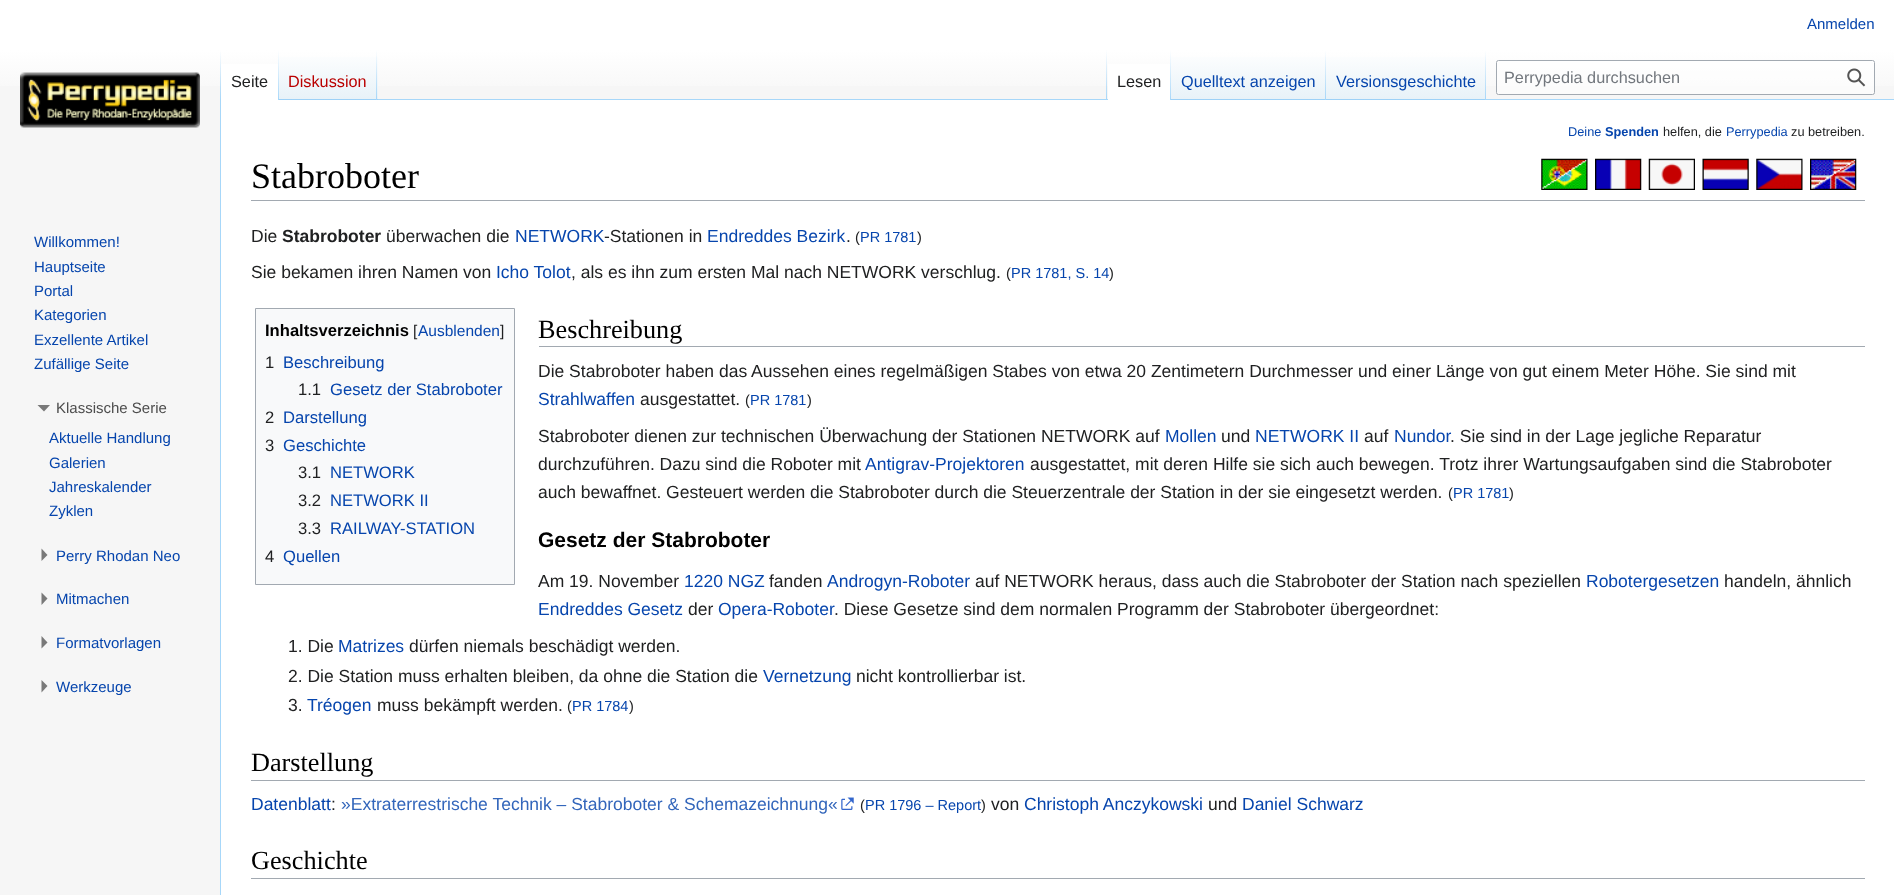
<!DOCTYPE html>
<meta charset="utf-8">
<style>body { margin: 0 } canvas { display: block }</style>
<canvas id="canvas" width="1894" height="895"></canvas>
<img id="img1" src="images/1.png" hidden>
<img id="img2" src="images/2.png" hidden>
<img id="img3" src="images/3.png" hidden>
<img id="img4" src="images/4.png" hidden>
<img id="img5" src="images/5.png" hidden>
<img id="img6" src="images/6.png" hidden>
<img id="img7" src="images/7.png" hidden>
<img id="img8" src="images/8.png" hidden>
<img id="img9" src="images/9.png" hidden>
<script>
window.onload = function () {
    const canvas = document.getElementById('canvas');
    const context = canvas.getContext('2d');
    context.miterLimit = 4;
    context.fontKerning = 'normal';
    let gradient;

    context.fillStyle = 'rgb(246, 246, 246)';
    context.fillRect(0, 0, 1894, 895);
    gradient = context.createLinearGradient(948, 0, 948, 100);
    gradient.addColorStop(0.5, 'rgb(255, 255, 255)');
    gradient.addColorStop(1, 'rgb(246, 246, 246)');
    context.fillStyle = gradient;
    context.fillRect(0, 0, 1894, 86);
    context.fillStyle = 'rgb(167, 215, 249)';
    context.fillRect(220, 99, 1, 796);
    gradient = context.createLinearGradient(221, 50, 221, 100);
    gradient.addColorStop(0, 'rgba(167, 215, 249, 0)');
    gradient.addColorStop(1, 'rgb(167, 215, 249)');
    context.fillStyle = gradient;
    context.fillRect(220, 50, 1, 50);
    context.fillStyle = 'rgb(255, 255, 255)';
    context.fillRect(221, 64, 57, 36);
    gradient = context.createLinearGradient(278, 50, 278, 100);
    gradient.addColorStop(0, 'rgb(255, 255, 255)');
    gradient.addColorStop(1, 'rgb(167, 215, 249)');
    context.fillStyle = gradient;
    context.fillRect(278, 50, 1, 50);
    gradient = context.createLinearGradient(328, 100, 328, 50);
    gradient.addColorStop(0, 'rgb(119, 193, 246)');
    gradient.addColorStop(0.03, 'rgb(232, 242, 248)');
    gradient.addColorStop(1, 'rgb(255, 255, 255)');
    context.fillStyle = gradient;
    context.fillRect(279, 57, 99, 43);
    gradient = context.createLinearGradient(377, 50, 377, 100);
    gradient.addColorStop(0, 'rgba(167, 215, 249, 0)');
    gradient.addColorStop(1, 'rgb(167, 215, 249)');
    context.fillStyle = gradient;
    context.fillRect(376, 50, 1, 50);
    context.fillStyle = 'rgb(167, 215, 249)';
    context.fillRect(378, 99, 1516, 1);
    gradient = context.createLinearGradient(1107, 50, 1107, 100);
    gradient.addColorStop(0, 'rgba(167, 215, 249, 0)');
    gradient.addColorStop(1, 'rgb(167, 215, 249)');
    context.fillStyle = gradient;
    context.fillRect(1106, 50, 1, 50);
    context.fillStyle = 'rgb(255, 255, 255)';
    context.fillRect(1108, 64, 62, 36);
    gradient = context.createLinearGradient(1171, 50, 1171, 100);
    gradient.addColorStop(0, 'rgb(255, 255, 255)');
    gradient.addColorStop(1, 'rgb(167, 215, 249)');
    context.fillStyle = gradient;
    context.fillRect(1170, 50, 1, 50);
    gradient = context.createLinearGradient(1249, 100, 1249, 50);
    gradient.addColorStop(0, 'rgb(119, 193, 246)');
    gradient.addColorStop(0.03, 'rgb(232, 242, 248)');
    gradient.addColorStop(1, 'rgb(255, 255, 255)');
    context.fillStyle = gradient;
    context.fillRect(1171, 57, 155, 43);
    gradient = context.createLinearGradient(1326, 50, 1326, 100);
    gradient.addColorStop(0, 'rgba(167, 215, 249, 0)');
    gradient.addColorStop(1, 'rgb(167, 215, 249)');
    context.fillStyle = gradient;
    context.fillRect(1325, 50, 1, 50);
    gradient = context.createLinearGradient(1406, 100, 1406, 50);
    gradient.addColorStop(0, 'rgb(119, 193, 246)');
    gradient.addColorStop(0.03, 'rgb(232, 242, 248)');
    gradient.addColorStop(1, 'rgb(255, 255, 255)');
    context.fillStyle = gradient;
    context.fillRect(1326, 57, 160, 43);
    gradient = context.createLinearGradient(1486, 50, 1486, 100);
    gradient.addColorStop(0, 'rgba(167, 215, 249, 0)');
    gradient.addColorStop(1, 'rgb(167, 215, 249)');
    context.fillStyle = gradient;
    context.fillRect(1485, 50, 1, 50);
    context.fillStyle = 'rgba(255, 255, 255, 0.5)';
    context.beginPath();
    context.roundRect(1496.5, 60.5, 378, 34, 2);
    context.fill();
    context.strokeStyle = 'rgb(162, 169, 177)';
    context.stroke();
    context.drawImage(document.getElementById('img1'), 1847, 68, 19, 19);
    context.drawImage(document.getElementById('img2'), 20, 72, 180, 56);
    context.fillStyle = 'rgb(121, 121, 121)';
    context.beginPath();
    context.moveTo(50, 405);
    context.lineTo(44, 411.5);
    context.lineTo(37.5, 405);
    context.closePath();
    context.fill();
    context.beginPath();
    context.moveTo(41.5, 548.5);
    context.lineTo(47.5, 555);
    context.lineTo(41.5, 561);
    context.closePath();
    context.fill();
    context.beginPath();
    context.moveTo(41.5, 592.5);
    context.lineTo(47.5, 598.5);
    context.lineTo(41.5, 605);
    context.closePath();
    context.fill();
    context.beginPath();
    context.moveTo(41.5, 636);
    context.lineTo(47.5, 642.5);
    context.lineTo(41.5, 648.5);
    context.closePath();
    context.fill();
    context.beginPath();
    context.moveTo(41.5, 680);
    context.lineTo(47.5, 686);
    context.lineTo(41.5, 692.5);
    context.closePath();
    context.fill();
    context.fillStyle = 'rgb(255, 255, 255)';
    context.fillRect(221, 100, 1673, 795);
    context.fillStyle = 'rgb(162, 169, 177)';
    context.fillRect(251, 200, 1614, 1);
    context.drawImage(document.getElementById('img3'), 1541, 158, 47, 32);
    context.drawImage(document.getElementById('img4'), 1595, 158, 47, 32);
    context.drawImage(document.getElementById('img5'), 1648, 158, 47, 32);
    context.drawImage(document.getElementById('img6'), 1702, 158, 47, 32);
    context.drawImage(document.getElementById('img7'), 1756, 158, 47, 32);
    context.drawImage(document.getElementById('img8'), 1810, 158, 47, 32);
    context.fillStyle = 'rgb(248, 249, 250)';
    context.beginPath();
    context.rect(255.5, 308.5, 259, 276);
    context.fill();
    context.stroke();
    context.fillStyle = 'rgb(162, 169, 177)';
    context.fillRect(539, 346, 1326, 1);
    context.fillRect(251, 780, 1614, 1);
    context.drawImage(document.getElementById('img9'), 841, 797, 13, 13);
    context.fillRect(251, 878, 1614, 1);
    context.font = '15px Liberation Sans';
    context.fillStyle = 'rgb(6, 69, 173)';
    context.fillText('Anmelden', 1807, 29);
    context.font = '16.25px Liberation Sans';
    context.fillStyle = 'rgb(32, 33, 34)';
    context.fillText('Seite', 231, 87);
    context.fillStyle = 'rgb(186, 0, 0)';
    context.fillText('Diskussion', 288, 87);
    context.fillStyle = 'rgb(32, 33, 34)';
    context.fillText('Lesen', 1117, 87);
    context.fillStyle = 'rgb(6, 69, 173)';
    context.fillText('Quelltext anzeigen', 1181, 87);
    context.fillText('Versionsgeschichte', 1336, 87);
    context.fillStyle = 'rgb(114, 119, 125)';
    context.fillText('Perrypedia durchsuchen', 1504, 83);
    context.font = '15px Liberation Sans';
    context.fillStyle = 'rgb(6, 69, 173)';
    context.fillText('Willkommen!', 34, 247);
    context.fillText('Hauptseite', 34, 272);
    context.fillText('Portal', 34, 296);
    context.fillText('Kategorien', 34, 320);
    context.fillText('Exzellente Artikel', 34, 345);
    context.fillText('Zufällige Seite', 34, 369);
    context.fillStyle = 'rgb(77, 77, 77)';
    context.fillText('Klassische Serie', 56, 413);
    context.fillStyle = 'rgb(6, 69, 173)';
    context.fillText('Aktuelle Handlung', 49, 443);
    context.fillText('Galerien', 49, 468);
    context.fillText('Jahreskalender', 49, 492);
    context.fillText('Zyklen', 49, 516);
    context.fillText('Perry Rhodan Neo', 56, 561);
    context.fillText('Mitmachen', 56, 604);
    context.fillText('Formatvorlagen', 56, 648);
    context.fillText('Werkzeuge', 56, 692);
    context.font = '12.75px Liberation Sans';
    context.fillText('Deine', 1568, 136);
    context.font = 'bold 12.75px Liberation Sans';
    context.fillText('Spenden', 1605, 136);
    context.font = '12.75px Liberation Sans';
    context.fillStyle = 'rgb(32, 33, 34)';
    context.fillText('helfen, die', 1663, 136);
    context.fillStyle = 'rgb(6, 69, 173)';
    context.fillText('Perrypedia', 1726, 136);
    context.fillStyle = 'rgb(32, 33, 34)';
    context.fillText('zu betreiben.', 1791, 136);
    context.font = '36px Liberation Serif';
    context.fillStyle = 'rgb(0, 0, 0)';
    context.fillText('Stabroboter', 251, 188);
    context.font = '17.5px Liberation Sans';
    context.fillStyle = 'rgb(32, 33, 34)';
    context.fillText('Die', 251, 242);
    context.font = 'bold 17.5px Liberation Sans';
    context.fillText('Stabroboter', 282, 242);
    context.font = '17.5px Liberation Sans';
    context.fillText('überwachen die', 386, 242);
    context.fillStyle = 'rgb(6, 69, 173)';
    context.fillText('NETWORK', 515, 242);
    context.fillStyle = 'rgb(32, 33, 34)';
    context.fillText('-Stationen in', 604, 242);
    context.fillStyle = 'rgb(6, 69, 173)';
    context.fillText('Endreddes Bezirk', 707, 242);
    context.fillStyle = 'rgb(32, 33, 34)';
    context.fillText('.', 846, 242);
    context.font = '14.5px Liberation Sans';
    context.fillText('(', 855, 242);
    context.fillStyle = 'rgb(6, 69, 173)';
    context.fillText('PR 1781', 860, 242);
    context.fillStyle = 'rgb(32, 33, 34)';
    context.fillText(')', 917, 242);
    context.font = '17.5px Liberation Sans';
    context.fillText('Sie bekamen ihren Namen von', 251, 278);
    context.fillStyle = 'rgb(6, 69, 173)';
    context.fillText('Icho Tolot', 496, 278);
    context.fillStyle = 'rgb(32, 33, 34)';
    context.fillText(', als es ihn zum ersten Mal nach NETWORK verschlug.', 571, 278);
    context.font = '14.5px Liberation Sans';
    context.fillText('(', 1006, 278);
    context.fillStyle = 'rgb(6, 69, 173)';
    context.fillText('PR 1781, S. 14', 1011, 278);
    context.fillStyle = 'rgb(32, 33, 34)';
    context.fillText(')', 1109, 278);
    context.font = 'bold 16.6px Liberation Sans';
    context.fillStyle = 'rgb(0, 0, 0)';
    context.fillText('Inhaltsverzeichnis', 265, 336);
    context.font = '15.5px Liberation Sans';
    context.fillStyle = 'rgb(32, 33, 34)';
    context.fillText('[', 413, 336);
    context.fillStyle = 'rgb(6, 69, 173)';
    context.fillText('Ausblenden', 418, 336);
    context.fillStyle = 'rgb(32, 33, 34)';
    context.fillText(']', 500, 336);
    context.font = '16.6px Liberation Sans';
    context.fillText('1', 265, 368);
    context.fillStyle = 'rgb(6, 69, 173)';
    context.fillText('Beschreibung', 283, 368);
    context.fillStyle = 'rgb(32, 33, 34)';
    context.fillText('1.1', 298, 395);
    context.fillStyle = 'rgb(6, 69, 173)';
    context.fillText('Gesetz der Stabroboter', 330, 395);
    context.fillStyle = 'rgb(32, 33, 34)';
    context.fillText('2', 265, 423);
    context.fillStyle = 'rgb(6, 69, 173)';
    context.fillText('Darstellung', 283, 423);
    context.fillStyle = 'rgb(32, 33, 34)';
    context.fillText('3', 265, 451);
    context.fillStyle = 'rgb(6, 69, 173)';
    context.fillText('Geschichte', 283, 451);
    context.fillStyle = 'rgb(32, 33, 34)';
    context.fillText('3.1', 298, 478);
    context.fillStyle = 'rgb(6, 69, 173)';
    context.fillText('NETWORK', 330, 478);
    context.fillStyle = 'rgb(32, 33, 34)';
    context.fillText('3.2', 298, 506);
    context.fillStyle = 'rgb(6, 69, 173)';
    context.fillText('NETWORK II', 330, 506);
    context.fillStyle = 'rgb(32, 33, 34)';
    context.fillText('3.3', 298, 534);
    context.fillStyle = 'rgb(6, 69, 173)';
    context.fillText('RAILWAY-STATION', 330, 534);
    context.fillStyle = 'rgb(32, 33, 34)';
    context.fillText('4', 265, 562);
    context.fillStyle = 'rgb(6, 69, 173)';
    context.fillText('Quellen', 283, 562);
    context.font = '26.25px Liberation Serif';
    context.fillStyle = 'rgb(0, 0, 0)';
    context.fillText('Beschreibung', 538, 338);
    context.font = '17.5px Liberation Sans';
    context.fillStyle = 'rgb(32, 33, 34)';
    context.fillText('Die Stabroboter haben das Aussehen eines regelmäßigen Stabes von etwa 20 Zentimetern Durchmesser und einer Länge von gut einem Meter Höhe. Sie sind mit', 538, 377);
    context.fillStyle = 'rgb(6, 69, 173)';
    context.fillText('Strahlwaffen', 538, 405);
    context.fillStyle = 'rgb(32, 33, 34)';
    context.fillText('ausgestattet.', 640, 405);
    context.font = '14.5px Liberation Sans';
    context.fillText('(', 745, 405);
    context.fillStyle = 'rgb(6, 69, 173)';
    context.fillText('PR 1781', 750, 405);
    context.fillStyle = 'rgb(32, 33, 34)';
    context.fillText(')', 807, 405);
    context.font = '17.5px Liberation Sans';
    context.fillText('Stabroboter dienen zur technischen Überwachung der Stationen NETWORK auf', 538, 442);
    context.fillStyle = 'rgb(6, 69, 173)';
    context.fillText('Mollen', 1165, 442);
    context.fillStyle = 'rgb(32, 33, 34)';
    context.fillText('und', 1221, 442);
    context.fillStyle = 'rgb(6, 69, 173)';
    context.fillText('NETWORK II', 1255, 442);
    context.fillStyle = 'rgb(32, 33, 34)';
    context.fillText('auf', 1364, 442);
    context.fillStyle = 'rgb(6, 69, 173)';
    context.fillText('Nundor', 1394, 442);
    context.fillStyle = 'rgb(32, 33, 34)';
    context.fillText('. Sie sind in der Lage jegliche Reparatur', 1450, 442);
    context.fillText('durchzuführen. Dazu sind die Roboter mit', 538, 470);
    context.fillStyle = 'rgb(6, 69, 173)';
    context.fillText('Antigrav-Projektoren', 865, 470);
    context.fillStyle = 'rgb(32, 33, 34)';
    context.fillText('ausgestattet, mit deren Hilfe sie sich auch bewegen. Trotz ihrer Wartungsaufgaben sind die Stabroboter', 1030, 470);
    context.fillText('auch bewaffnet. Gesteuert werden die Stabroboter durch die Steuerzentrale der Station in der sie eingesetzt werden.', 538, 498);
    context.font = '14.5px Liberation Sans';
    context.fillText('(', 1448, 498);
    context.fillStyle = 'rgb(6, 69, 173)';
    context.fillText('PR 1781', 1453, 498);
    context.fillStyle = 'rgb(32, 33, 34)';
    context.fillText(')', 1509, 498);
    context.font = 'bold 21px Liberation Sans';
    context.fillStyle = 'rgb(0, 0, 0)';
    context.fillText('Gesetz der Stabroboter', 538, 547);
    context.font = '17.5px Liberation Sans';
    context.fillStyle = 'rgb(32, 33, 34)';
    context.fillText('Am 19. November', 538, 587);
    context.fillStyle = 'rgb(6, 69, 173)';
    context.fillText('1220 NGZ', 684, 587);
    context.fillStyle = 'rgb(32, 33, 34)';
    context.fillText('fanden', 769, 587);
    context.fillStyle = 'rgb(6, 69, 173)';
    context.fillText('Androgyn-Roboter', 827, 587);
    context.fillStyle = 'rgb(32, 33, 34)';
    context.fillText('auf NETWORK heraus, dass auch die Stabroboter der Station nach speziellen', 975, 587);
    context.fillStyle = 'rgb(6, 69, 173)';
    context.fillText('Robotergesetzen', 1586, 587);
    context.fillStyle = 'rgb(32, 33, 34)';
    context.fillText('handeln, ähnlich', 1724, 587);
    context.fillStyle = 'rgb(6, 69, 173)';
    context.fillText('Endreddes Gesetz', 538, 615);
    context.fillStyle = 'rgb(32, 33, 34)';
    context.fillText('der', 688, 615);
    context.fillStyle = 'rgb(6, 69, 173)';
    context.fillText('Opera-Roboter', 718, 615);
    context.fillStyle = 'rgb(32, 33, 34)';
    context.fillText('. Diese Gesetze sind dem normalen Programm der Stabroboter übergeordnet:', 834, 615);
    context.fillText('1. Die', 288, 652);
    context.fillStyle = 'rgb(6, 69, 173)';
    context.fillText('Matrizes', 338, 652);
    context.fillStyle = 'rgb(32, 33, 34)';
    context.fillText('dürfen niemals beschädigt werden.', 409, 652);
    context.fillText('2. Die Station muss erhalten bleiben, da ohne die Station die', 288, 682);
    context.fillStyle = 'rgb(6, 69, 173)';
    context.fillText('Vernetzung', 763, 682);
    context.fillStyle = 'rgb(32, 33, 34)';
    context.fillText('nicht kontrollierbar ist.', 856, 682);
    context.fillText('3.', 288, 711);
    context.fillStyle = 'rgb(6, 69, 173)';
    context.fillText('Tréogen', 307, 711);
    context.fillStyle = 'rgb(32, 33, 34)';
    context.fillText('muss bekämpft werden.', 377, 711);
    context.font = '14.5px Liberation Sans';
    context.fillText('(', 567, 711);
    context.fillStyle = 'rgb(6, 69, 173)';
    context.fillText('PR 1784', 572, 711);
    context.fillStyle = 'rgb(32, 33, 34)';
    context.fillText(')', 629, 711);
    context.font = '26.25px Liberation Serif';
    context.fillStyle = 'rgb(0, 0, 0)';
    context.fillText('Darstellung', 251, 771);
    context.font = '17.5px Liberation Sans';
    context.fillStyle = 'rgb(6, 69, 173)';
    context.fillText('Datenblatt', 251, 810);
    context.fillStyle = 'rgb(32, 33, 34)';
    context.fillText(':', 331, 810);
    context.fillStyle = 'rgb(51, 102, 187)';
    context.fillText('»Extraterrestrische Technik – Stabroboter & Schemazeichnung«', 341, 810);
    context.font = '14.5px Liberation Sans';
    context.fillStyle = 'rgb(32, 33, 34)';
    context.fillText('(', 860, 810);
    context.fillStyle = 'rgb(6, 69, 173)';
    context.fillText('PR 1796 – Report', 865, 810);
    context.fillStyle = 'rgb(32, 33, 34)';
    context.fillText(')', 981, 810);
    context.font = '17.5px Liberation Sans';
    context.fillText('von', 991, 810);
    context.fillStyle = 'rgb(6, 69, 173)';
    context.fillText('Christoph Anczykowski', 1024, 810);
    context.fillStyle = 'rgb(32, 33, 34)';
    context.fillText('und', 1208, 810);
    context.fillStyle = 'rgb(6, 69, 173)';
    context.fillText('Daniel Schwarz', 1242, 810);
    context.font = '26.25px Liberation Serif';
    context.fillStyle = 'rgb(0, 0, 0)';
    context.fillText('Geschichte', 251, 869);
};
</script>
